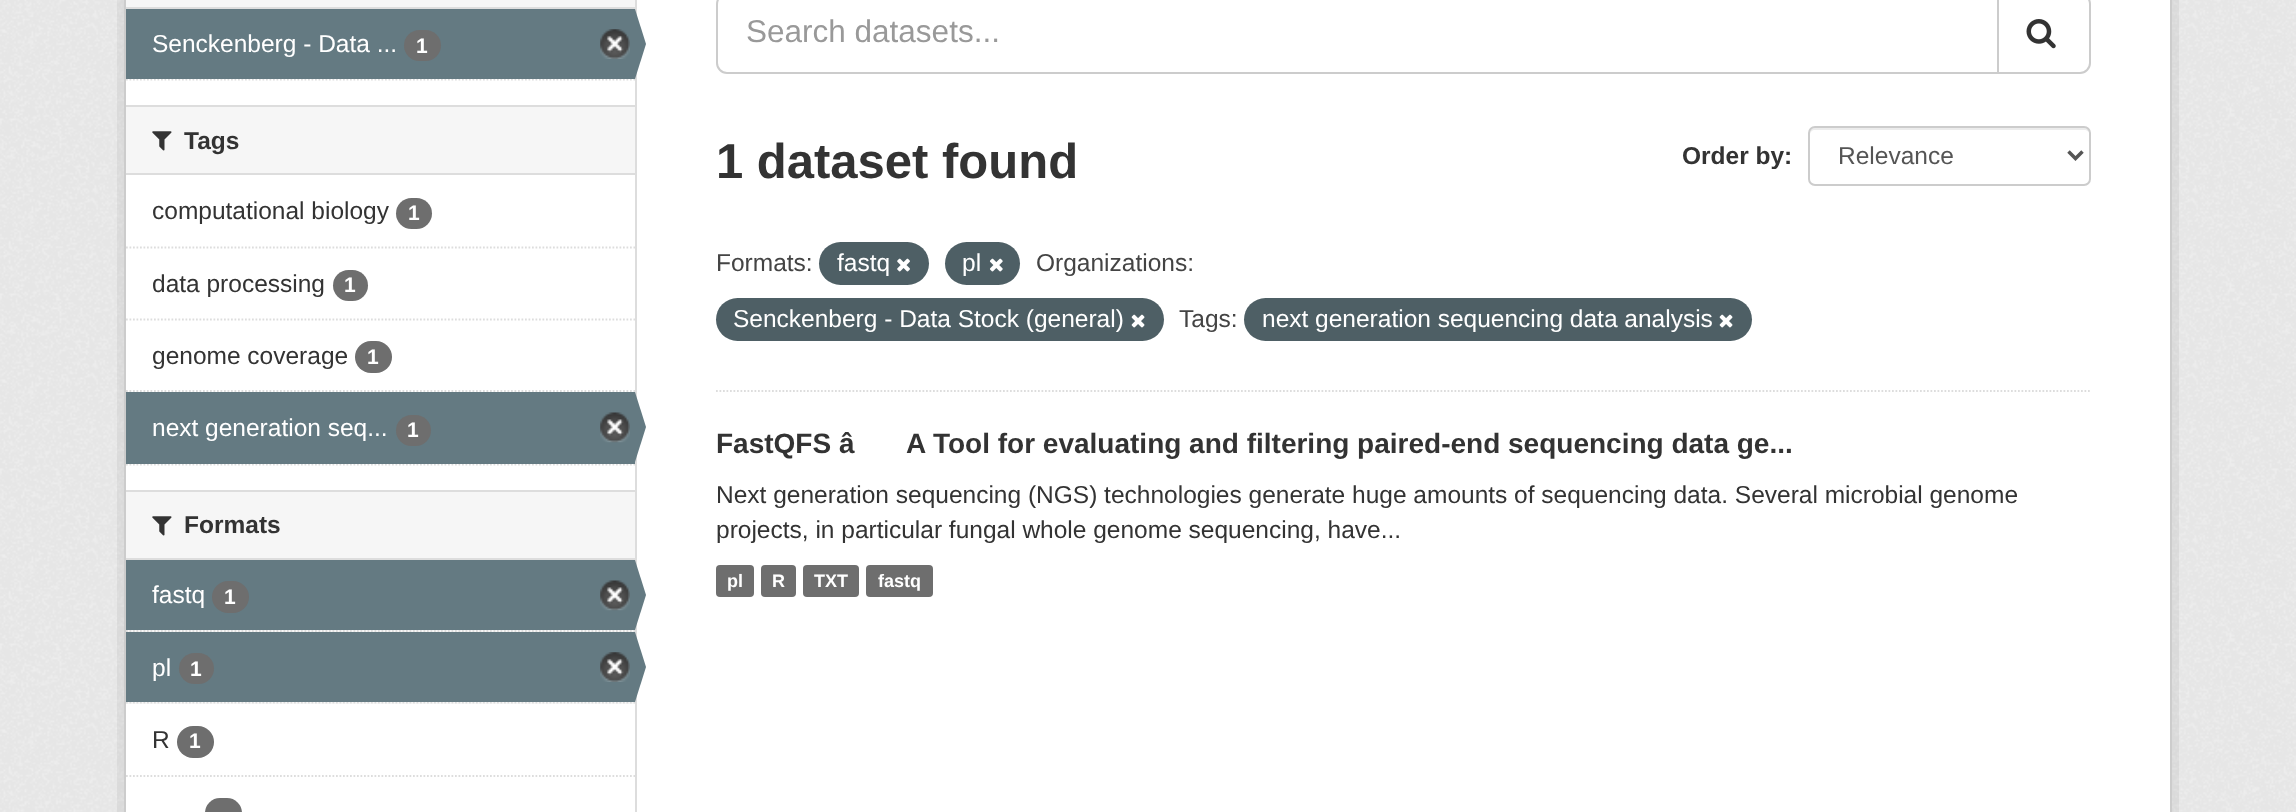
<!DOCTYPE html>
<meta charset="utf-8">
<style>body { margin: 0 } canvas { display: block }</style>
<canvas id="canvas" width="2296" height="812"></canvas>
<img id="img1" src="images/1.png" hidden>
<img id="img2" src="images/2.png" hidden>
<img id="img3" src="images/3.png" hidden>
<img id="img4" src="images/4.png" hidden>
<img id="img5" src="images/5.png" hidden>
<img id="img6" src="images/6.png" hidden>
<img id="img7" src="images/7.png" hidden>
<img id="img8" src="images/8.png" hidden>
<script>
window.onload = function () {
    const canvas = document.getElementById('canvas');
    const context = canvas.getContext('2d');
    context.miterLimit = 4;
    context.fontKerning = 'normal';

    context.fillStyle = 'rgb(238, 238, 238)';
    context.fillRect(0, 0, 2296, 812);
    context.drawImage(document.getElementById('img1'), 0, 0, 2296, 812);
    context.strokeStyle = 'rgba(0, 0, 0, 0.05)';
    context.lineWidth = 7;
    context.strokeRect(120.5, -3.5, 2055, 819);
    context.fillStyle = 'rgb(255, 255, 255)';
    context.beginPath();
    context.rect(125, -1, 2046, 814);
    context.fill();
    context.strokeStyle = 'rgb(204, 204, 204)';
    context.lineWidth = 2;
    context.stroke();
    context.fillStyle = 'rgb(246, 246, 246)';
    context.fillRect(126, 0, 509, 7);
    context.fillStyle = 'rgb(221, 221, 221)';
    context.fillRect(126, 7, 509, 2);
    context.beginPath();
    context.moveTo(126, 79.5);
    context.lineTo(635, 79.5);
    context.strokeStyle = 'rgb(221, 221, 221)';
    context.lineWidth = 1.8;
    context.setLineDash([1.75, 1.75]);
    context.stroke();
    context.fillStyle = 'rgb(100, 122, 130)';
    context.fillRect(126, 9, 509, 70);
    context.fillStyle = 'rgb(110, 110, 110)';
    context.beginPath();
    context.roundRect(404, 30, 37, 31, 15.5);
    context.fill();
    context.drawImage(document.getElementById('img2'), 600, 29, 30, 30);
    context.fillStyle = 'rgb(221, 221, 221)';
    context.fillRect(635, 0, 2, 812);
    context.fillStyle = 'rgb(100, 122, 130)';
    context.beginPath();
    context.moveTo(635, 79);
    context.lineTo(635, 9);
    context.lineTo(646, 44);
    context.closePath();
    context.fill();
    context.fillStyle = 'rgb(246, 246, 246)';
    context.fillRect(126, 107, 509, 66);
    context.fillStyle = 'rgb(221, 221, 221)';
    context.fillRect(126, 105, 509, 2);
    context.fillRect(126, 173, 509, 2);
    context.drawImage(document.getElementById('img3'), 152, 131, 20, 20);
    context.beginPath();
    context.moveTo(126, 247.5);
    context.lineTo(635, 247.5);
    context.stroke();
    context.fillStyle = 'rgb(110, 110, 110)';
    context.beginPath();
    context.roundRect(396, 198, 36, 31, 15.5);
    context.fill();
    context.beginPath();
    context.moveTo(126, 319.5);
    context.lineTo(635, 319.5);
    context.stroke();
    context.beginPath();
    context.roundRect(333, 270, 35, 31, 15.5);
    context.fill();
    context.beginPath();
    context.moveTo(126, 391);
    context.lineTo(635, 391);
    context.stroke();
    context.beginPath();
    context.roundRect(355, 341, 37, 32, 16);
    context.fill();
    context.beginPath();
    context.moveTo(126, 464.5);
    context.lineTo(635, 464.5);
    context.stroke();
    context.fillStyle = 'rgb(100, 122, 130)';
    context.fillRect(126, 392, 509, 72);
    context.fillStyle = 'rgb(110, 110, 110)';
    context.beginPath();
    context.roundRect(396, 415, 35, 31, 15.5);
    context.fill();
    context.drawImage(document.getElementById('img4'), 600, 412, 30, 31);
    context.fillStyle = 'rgb(100, 122, 130)';
    context.beginPath();
    context.moveTo(635, 462);
    context.lineTo(635, 392);
    context.lineTo(646, 427);
    context.closePath();
    context.fill();
    context.fillStyle = 'rgb(246, 246, 246)';
    context.fillRect(126, 492, 509, 66);
    context.fillStyle = 'rgb(221, 221, 221)';
    context.fillRect(126, 490, 509, 2);
    context.fillRect(126, 558, 509, 2);
    context.drawImage(document.getElementById('img3'), 152, 516, 20, 20);
    context.fillStyle = 'rgb(246, 246, 246)';
    context.fillRect(126, 630, 509, 2);
    context.beginPath();
    context.moveTo(126, 631);
    context.lineTo(635, 631);
    context.stroke();
    context.fillStyle = 'rgb(100, 122, 130)';
    context.fillRect(126, 560, 509, 70);
    context.fillStyle = 'rgb(110, 110, 110)';
    context.beginPath();
    context.roundRect(212, 581, 37, 32, 16);
    context.fill();
    context.drawImage(document.getElementById('img4'), 600, 580, 30, 31);
    context.fillStyle = 'rgb(100, 122, 130)';
    context.beginPath();
    context.moveTo(635, 630);
    context.lineTo(635, 560);
    context.lineTo(646, 595);
    context.closePath();
    context.fill();
    context.fillStyle = 'rgb(246, 246, 246)';
    context.fillRect(126, 702, 509, 2);
    context.beginPath();
    context.moveTo(126, 702.5);
    context.lineTo(635, 702.5);
    context.stroke();
    context.fillStyle = 'rgb(100, 122, 130)';
    context.fillRect(126, 632, 509, 70);
    context.fillStyle = 'rgb(110, 110, 110)';
    context.beginPath();
    context.roundRect(179, 653, 35, 31, 15.5);
    context.fill();
    context.drawImage(document.getElementById('img2'), 600, 652, 30, 30);
    context.fillStyle = 'rgb(100, 122, 130)';
    context.beginPath();
    context.moveTo(635, 702);
    context.lineTo(635, 632);
    context.lineTo(646, 667);
    context.closePath();
    context.fill();
    context.beginPath();
    context.moveTo(126, 776);
    context.lineTo(635, 776);
    context.stroke();
    context.fillStyle = 'rgb(110, 110, 110)';
    context.beginPath();
    context.roundRect(177, 726, 37, 32, 16);
    context.fill();
    context.beginPath();
    context.roundRect(205, 798, 37, 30, 16);
    context.fill();
    context.beginPath();
    context.moveTo(716, 391);
    context.lineTo(2091, 391);
    context.stroke();
    context.fillStyle = 'rgb(236, 236, 236)';
    context.beginPath();
    context.moveTo(726, -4);
    context.lineTo(1997, -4);
    context.lineTo(1997, -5);
    context.lineTo(727, -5);
    context.bezierCurveTo(722, -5, 718, -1, 718, 4);
    context.lineTo(718, 5);
    context.bezierCurveTo(718, 0, 721, -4, 726, -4);
    context.closePath();
    context.fill();
    context.beginPath();
    context.moveTo(727, -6);
    context.lineTo(1998, -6);
    context.lineTo(1998, 73);
    context.lineTo(727, 73);
    context.bezierCurveTo(721.5, 73, 717, 68.5, 717, 63);
    context.lineTo(717, 4);
    context.bezierCurveTo(717, -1.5, 721.5, -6, 727, -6);
    context.closePath();
    context.strokeStyle = 'rgb(204, 204, 204)';
    context.lineWidth = 2;
    context.setLineDash([]);
    context.stroke();
    context.fillStyle = 'rgb(255, 255, 255)';
    context.beginPath();
    context.moveTo(1998, -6);
    context.lineTo(2080, -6);
    context.bezierCurveTo(2085.5, -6, 2090, -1.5, 2090, 4);
    context.lineTo(2090, 63);
    context.bezierCurveTo(2090, 68.5, 2085.5, 73, 2080, 73);
    context.lineTo(1998, 73);
    context.closePath();
    context.fill();
    context.stroke();
    context.drawImage(document.getElementById('img5'), 2026, 19, 30, 30);
    context.fillStyle = 'rgb(236, 236, 236)';
    context.beginPath();
    context.moveTo(1815, 130);
    context.lineTo(2084, 130);
    context.bezierCurveTo(2087, 130, 2090, 132, 2090, 135);
    context.lineTo(2090, 133);
    context.bezierCurveTo(2090, 130, 2088, 128, 2085, 128);
    context.lineTo(1815, 128);
    context.bezierCurveTo(1812, 128, 1810, 130, 1810, 133);
    context.lineTo(1810, 135);
    context.bezierCurveTo(1810, 132, 1812, 130, 1815, 130);
    context.closePath();
    context.fill();
    context.beginPath();
    context.roundRect(1809, 127, 281, 58, 6);
    context.stroke();
    context.beginPath();
    context.moveTo(2068.5, 151.5);
    context.lineTo(2075.5, 158.5);
    context.lineTo(2082.5, 151.5);
    context.strokeStyle = 'rgb(85, 85, 85)';
    context.lineWidth = 3.5;
    context.stroke();
    context.fillStyle = 'rgb(78, 95, 101)';
    context.beginPath();
    context.roundRect(819, 242, 110, 43, 21.5);
    context.fill();
    context.drawImage(document.getElementById('img6'), 897, 258, 13, 14);
    context.beginPath();
    context.roundRect(945, 242, 75, 43, 21.5);
    context.fill();
    context.drawImage(document.getElementById('img7'), 989, 258, 14, 14);
    context.beginPath();
    context.roundRect(716, 298, 448, 43, 21.5);
    context.fill();
    context.drawImage(document.getElementById('img8'), 1131, 314, 14, 14);
    context.beginPath();
    context.roundRect(1244, 298, 508, 43, 21.5);
    context.fill();
    context.drawImage(document.getElementById('img8'), 1719, 314, 14, 14);
    context.fillStyle = 'rgb(110, 110, 110)';
    context.beginPath();
    context.roundRect(716, 565, 38, 32, 4);
    context.fill();
    context.beginPath();
    context.roundRect(761, 565, 35, 32, 4);
    context.fill();
    context.beginPath();
    context.roundRect(803, 565, 56, 32, 4);
    context.fill();
    context.beginPath();
    context.roundRect(866, 565, 67, 32, 4);
    context.fill();
    context.font = '24.5px Liberation Sans';
    context.fillStyle = 'rgb(255, 255, 255)';
    context.fillText('Senckenberg - Data ...', 152, 52);
    context.font = 'bold 21px Liberation Sans';
    context.fillText('1', 416, 53);
    context.font = 'bold 24.5px Liberation Sans';
    context.fillStyle = 'rgb(51, 51, 51)';
    context.fillText('Tags', 184, 149);
    context.font = '24.5px Liberation Sans';
    context.fillText('computational biology', 152, 219);
    context.font = 'bold 21px Liberation Sans';
    context.fillStyle = 'rgb(255, 255, 255)';
    context.fillText('1', 408, 220);
    context.font = '24.5px Liberation Sans';
    context.fillStyle = 'rgb(51, 51, 51)';
    context.fillText('data processing', 152, 292);
    context.font = 'bold 21px Liberation Sans';
    context.fillStyle = 'rgb(255, 255, 255)';
    context.fillText('1', 344, 292);
    context.font = '24.5px Liberation Sans';
    context.fillStyle = 'rgb(51, 51, 51)';
    context.fillText('genome coverage', 152, 364);
    context.font = 'bold 21px Liberation Sans';
    context.fillStyle = 'rgb(255, 255, 255)';
    context.fillText('1', 367, 364);
    context.font = '24.5px Liberation Sans';
    context.fillText('next generation seq...', 152, 436);
    context.font = 'bold 21px Liberation Sans';
    context.fillText('1', 407, 437);
    context.font = 'bold 24.5px Liberation Sans';
    context.fillStyle = 'rgb(51, 51, 51)';
    context.fillText('Formats', 184, 533);
    context.font = '24.5px Liberation Sans';
    context.fillStyle = 'rgb(255, 255, 255)';
    context.fillText('fastq', 152, 603);
    context.font = 'bold 21px Liberation Sans';
    context.fillText('1', 224, 604);
    context.font = '24.5px Liberation Sans';
    context.fillText('pl', 152, 676);
    context.font = 'bold 21px Liberation Sans';
    context.fillText('1', 190, 676);
    context.font = '24.5px Liberation Sans';
    context.fillStyle = 'rgb(51, 51, 51)';
    context.fillText('R', 152, 748);
    context.font = 'bold 21px Liberation Sans';
    context.fillStyle = 'rgb(255, 255, 255)';
    context.fillText('1', 189, 748);
    context.font = '31.5px Liberation Sans';
    context.fillStyle = 'rgb(153, 153, 153)';
    context.fillText('Search datasets...', 746, 42);
    context.font = 'bold 49px Liberation Sans';
    context.fillStyle = 'rgb(51, 51, 51)';
    context.fillText('1 dataset found', 716, 178);
    context.font = 'bold 24.5px Liberation Sans';
    context.fillText('Order by:', 1682, 164);
    context.font = '24.5px Liberation Sans';
    context.fillStyle = 'rgb(85, 85, 85)';
    context.fillText('Relevance', 1838, 164);
    context.fillStyle = 'rgb(68, 68, 68)';
    context.fillText('Formats:', 716, 271);
    context.fillStyle = 'rgb(255, 255, 255)';
    context.fillText('fastq', 837, 271);
    context.fillText('pl', 962, 271);
    context.fillStyle = 'rgb(68, 68, 68)';
    context.fillText('Organizations:', 1036, 271);
    context.fillStyle = 'rgb(255, 255, 255)';
    context.fillText('Senckenberg - Data Stock (general)', 733, 327);
    context.fillStyle = 'rgb(68, 68, 68)';
    context.fillText('Tags:', 1179, 327);
    context.fillStyle = 'rgb(255, 255, 255)';
    context.fillText('next generation sequencing data analysis', 1262, 327);
    context.font = 'bold 28px Liberation Sans';
    context.fillStyle = 'rgb(51, 51, 51)';
    context.fillText('FastQFS â', 716, 453);
    context.fillText('A Tool for evaluating and filtering paired-end sequencing data ge...', 906, 453);
    context.font = '24.5px Liberation Sans';
    context.fillText('Next generation sequencing (NGS) technologies generate huge amounts of sequencing data. Several microbial genome', 716, 503);
    context.fillText('projects, in particular fungal whole genome sequencing, have...', 716, 538);
    context.font = 'bold 18px Liberation Sans';
    context.fillStyle = 'rgb(255, 255, 255)';
    context.fillText('pl', 727, 587);
    context.fillText('R', 772, 587);
    context.fillText('TXT', 814, 587);
    context.fillText('fastq', 878, 587);
};
</script>
